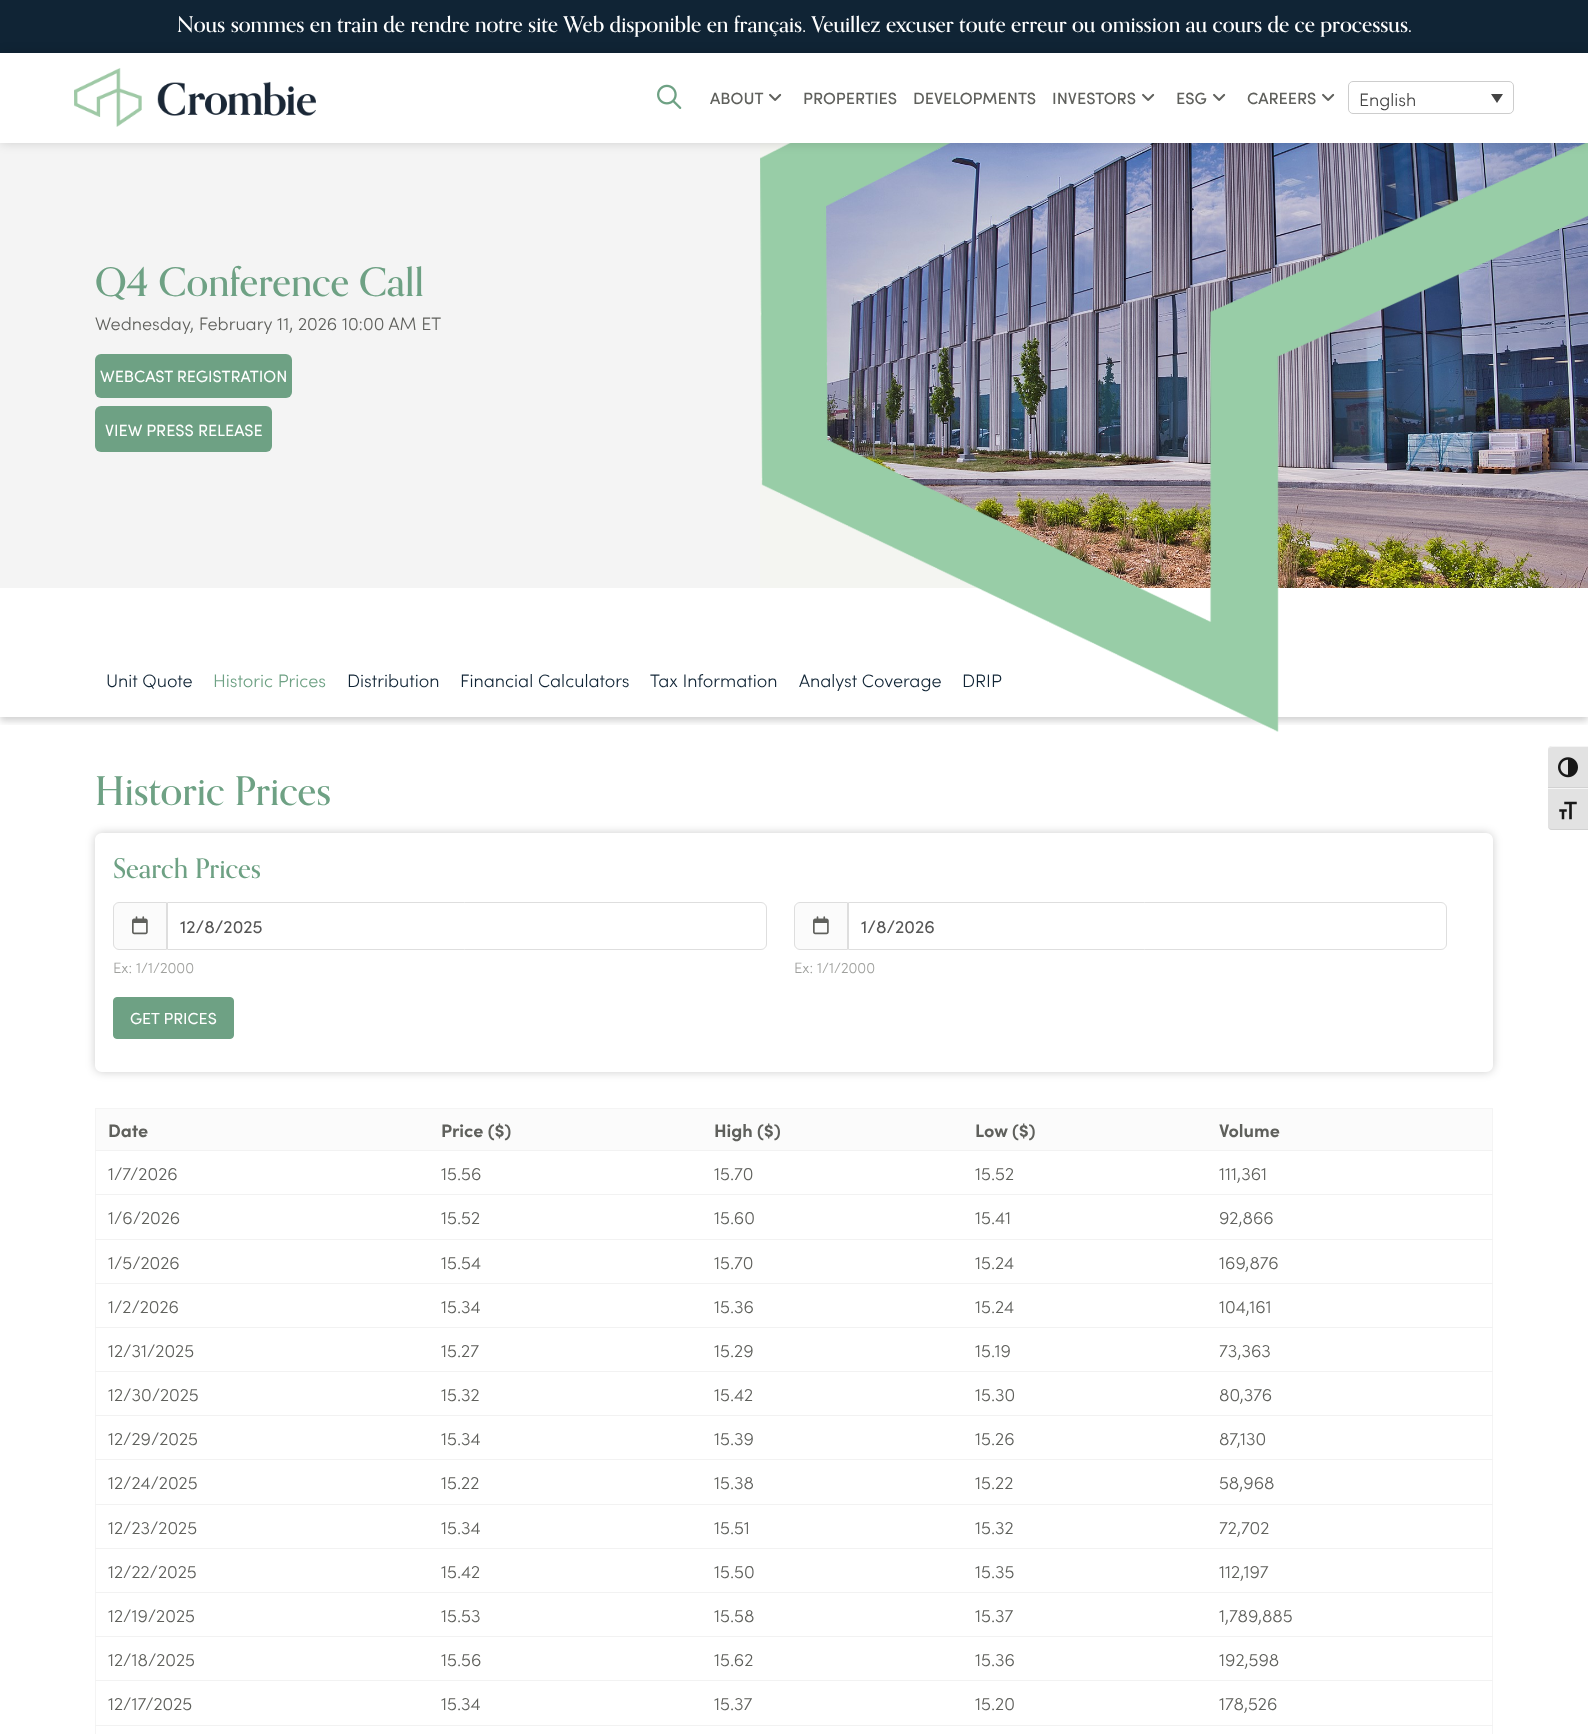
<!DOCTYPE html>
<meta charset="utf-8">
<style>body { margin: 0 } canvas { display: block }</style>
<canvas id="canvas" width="1588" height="1734"></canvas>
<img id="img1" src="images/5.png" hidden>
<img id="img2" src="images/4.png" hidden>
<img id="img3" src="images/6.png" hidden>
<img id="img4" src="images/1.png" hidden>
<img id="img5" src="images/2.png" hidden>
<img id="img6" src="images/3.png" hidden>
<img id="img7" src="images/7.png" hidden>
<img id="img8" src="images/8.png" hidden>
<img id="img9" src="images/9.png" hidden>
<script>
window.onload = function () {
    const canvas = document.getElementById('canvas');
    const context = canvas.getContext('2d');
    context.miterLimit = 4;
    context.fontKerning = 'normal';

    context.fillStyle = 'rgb(255, 255, 255)';
    context.fillRect(0, 0, 1588, 1734);
    context.fillStyle = 'rgb(16, 36, 53)';
    context.fillRect(0, 0, 1588, 53);
    context.drawImage(document.getElementById('img1'), 825, 143, 763, 445);
    context.drawImage(document.getElementById('img2'), 760, 143, 219, 445);
    context.fillStyle = 'rgb(244, 244, 244)';
    context.fillRect(0, 143, 760, 445);
    context.save();
    context.beginPath();
    context.rect(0, 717, 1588, 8);
    context.clip();
    context.fillStyle = 'rgba(0, 0, 0, 0.18)';
    context.filter = 'blur(3.5px)';
    context.beginPath();
    context.rect(0, 646, 1588, 75);
    context.fill();
    context.filter = 'none';
    context.restore();
    context.drawImage(document.getElementById('img3'), 760, 143, 828, 589);
    context.save();
    context.beginPath();
    context.moveTo(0, 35);
    context.lineTo(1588, 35);
    context.lineTo(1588, 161);
    context.lineTo(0, 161);
    context.closePath();
    context.moveTo(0, 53);
    context.lineTo(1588, 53);
    context.lineTo(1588, 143);
    context.lineTo(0, 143);
    context.closePath();
    context.clip('evenodd');
    context.fillStyle = 'rgba(0, 0, 0, 0.15)';
    context.filter = 'blur(5.5px)';
    context.beginPath();
    context.rect(0, 53, 1588, 90);
    context.fill();
    context.filter = 'none';
    context.restore();
    context.drawImage(document.getElementById('img4'), 74, 68, 242, 59);
    context.drawImage(document.getElementById('img5'), 657, 84, 25, 25);
    context.drawImage(document.getElementById('img6'), 769, 93, 13, 8);
    context.drawImage(document.getElementById('img6'), 1142, 93, 13, 8);
    context.drawImage(document.getElementById('img6'), 1213, 93, 13, 8);
    context.drawImage(document.getElementById('img6'), 1322, 93, 13, 8);
    context.beginPath();
    context.roundRect(1348.5, 81.5, 165, 32, 4.5);
    context.strokeStyle = 'rgb(205, 205, 205)';
    context.stroke();
    context.fillStyle = 'rgb(68, 68, 68)';
    context.beginPath();
    context.moveTo(1491, 94);
    context.lineTo(1503, 94);
    context.lineTo(1497, 103);
    context.closePath();
    context.fill();
    context.fillStyle = 'rgb(110, 161, 132)';
    context.beginPath();
    context.roundRect(95, 354, 197, 44, 6);
    context.fill();
    context.beginPath();
    context.roundRect(95, 406, 177, 46, 6);
    context.fill();
    context.save();
    context.beginPath();
    context.moveTo(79, 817);
    context.lineTo(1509, 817);
    context.lineTo(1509, 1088);
    context.lineTo(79, 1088);
    context.closePath();
    context.moveTo(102, 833);
    context.lineTo(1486, 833);
    context.bezierCurveTo(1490, 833, 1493, 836, 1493, 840);
    context.lineTo(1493, 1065);
    context.bezierCurveTo(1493, 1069, 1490, 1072, 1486, 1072);
    context.lineTo(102, 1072);
    context.bezierCurveTo(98, 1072, 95, 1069, 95, 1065);
    context.lineTo(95, 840);
    context.bezierCurveTo(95, 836, 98, 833, 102, 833);
    context.closePath();
    context.clip('evenodd');
    context.fillStyle = 'rgba(0, 0, 0, 0.2)';
    context.filter = 'blur(5px)';
    context.beginPath();
    context.roundRect(95, 833, 1398, 239, 7);
    context.fill();
    context.filter = 'none';
    context.restore();
    context.fillStyle = 'rgb(251, 251, 251)';
    context.beginPath();
    context.roundRect(113.5, 902.5, 53, 47, [5.5, 0, 0, 5.5]);
    context.fill();
    context.strokeStyle = 'rgb(222, 222, 222)';
    context.stroke();
    context.drawImage(document.getElementById('img7'), 132, 916, 16, 19);
    context.beginPath();
    context.roundRect(167.5, 902.5, 599, 47, [0, 5.5, 5.5, 0]);
    context.stroke();
    context.beginPath();
    context.roundRect(794.5, 902.5, 53, 47, [5.5, 0, 0, 5.5]);
    context.fill();
    context.stroke();
    context.drawImage(document.getElementById('img7'), 813, 916, 16, 19);
    context.beginPath();
    context.roundRect(848.5, 902.5, 598, 47, [0, 5.5, 5.5, 0]);
    context.stroke();
    context.fillStyle = 'rgb(110, 161, 132)';
    context.beginPath();
    context.roundRect(113.5, 997.5, 120, 41, 3.5);
    context.fill();
    context.strokeStyle = 'rgb(110, 161, 132)';
    context.stroke();
    context.fillStyle = 'rgb(244, 244, 244)';
    context.fillRect(95, 1108, 1398, 1);
    context.fillRect(1492, 1108, 1, 626);
    context.fillRect(95, 1108, 1, 626);
    context.fillStyle = 'rgb(251, 251, 251)';
    context.fillRect(96, 1109, 1396, 41);
    context.fillStyle = 'rgb(242, 242, 242)';
    context.fillRect(95, 1150, 1398, 1);
    context.fillRect(95, 1194, 1398, 1);
    context.fillRect(95, 1239, 1398, 1);
    context.fillRect(95, 1283, 1398, 1);
    context.fillRect(95, 1327, 1398, 1);
    context.fillRect(95, 1371, 1398, 1);
    context.fillRect(95, 1415, 1398, 1);
    context.fillRect(95, 1459, 1398, 1);
    context.fillRect(95, 1504, 1398, 1);
    context.fillRect(95, 1548, 1398, 1);
    context.fillRect(95, 1592, 1398, 1);
    context.fillRect(95, 1636, 1398, 1);
    context.fillRect(95, 1680, 1398, 1);
    context.fillRect(95, 1725, 1398, 1);
    context.fillStyle = 'rgb(226, 226, 226)';
    context.beginPath();
    context.roundRect(1548, 746, 40, 42, [4, 0, 0, 0]);
    context.fill();
    context.fillStyle = 'rgb(245, 245, 245)';
    context.beginPath();
    context.moveTo(1552, 747);
    context.lineTo(1588, 747);
    context.lineTo(1588, 746);
    context.lineTo(1552, 746);
    context.bezierCurveTo(1550, 746, 1548, 748, 1548, 750);
    context.bezierCurveTo(1548, 748, 1550, 747, 1552, 747);
    context.closePath();
    context.fill();
    context.fillStyle = 'rgb(210, 210, 210)';
    context.fillRect(1548, 787, 40, 1);
    context.drawImage(document.getElementById('img8'), 1558, 757, 20, 21);
    context.fillStyle = 'rgb(226, 226, 226)';
    context.beginPath();
    context.roundRect(1548, 788, 40, 42, [0, 0, 0, 4]);
    context.fill();
    context.fillStyle = 'rgb(245, 245, 245)';
    context.fillRect(1548, 788, 40, 1);
    context.fillStyle = 'rgb(210, 210, 210)';
    context.beginPath();
    context.moveTo(1588, 830);
    context.lineTo(1588, 829);
    context.lineTo(1552, 829);
    context.bezierCurveTo(1550, 829, 1548, 828, 1548, 826);
    context.bezierCurveTo(1548, 828, 1550, 830, 1552, 830);
    context.closePath();
    context.fill();
    context.drawImage(document.getElementById('img9'), 1559, 801, 18, 19);
    context.font = '500 21.6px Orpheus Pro';
    context.fillStyle = 'rgb(255, 255, 255)';
    context.fillText('Nous sommes en train de rendre notre site Web disponible en français. Veuillez excuser toute erreur ou omission au cours de ce processus.', 177, 32);
    context.font = '500 16.25px Sofia';
    context.fillStyle = 'rgb(95, 96, 92)';
    context.fillText('ABOUT', 710, 104);
    context.fillText('PROPERTIES', 803, 104);
    context.fillText('DEVELOPMENTS', 913, 104);
    context.fillText('INVESTORS', 1052, 104);
    context.fillText('ESG', 1176, 104);
    context.fillText('CAREERS', 1247, 104);
    context.font = '300 18px Sofia';
    context.fillStyle = 'rgb(68, 68, 68)';
    context.fillText('English', 1359, 106);
    context.font = '500 39.5px Orpheus Pro';
    context.fillStyle = 'rgb(110, 161, 132)';
    context.fillText('Q4 Conference Call', 95, 296);
    context.font = '300 18px Sofia';
    context.fillStyle = 'rgb(95, 96, 92)';
    context.fillText('Wednesday, February 11, 2026 10:00 AM ET', 95, 330);
    context.font = '16.25px Sofia';
    context.fillStyle = 'rgb(255, 255, 255)';
    context.fillText('WEBCAST REGISTRATION', 100, 382);
    context.fillText('VIEW PRESS RELEASE', 105, 436);
    context.font = '300 18px Sofia';
    context.fillStyle = 'rgb(16, 36, 53)';
    context.fillText('Unit Quote', 106, 687);
    context.fillStyle = 'rgb(110, 161, 132)';
    context.fillText('Historic Prices', 213, 687);
    context.fillStyle = 'rgb(16, 36, 53)';
    context.fillText('Distribution', 347, 687);
    context.fillText('Financial Calculators', 460, 687);
    context.fillText('Tax Information', 650, 687);
    context.fillText('Analyst Coverage', 799, 687);
    context.fillText('DRIP', 962, 687);
    context.font = '500 39.5px Orpheus Pro';
    context.fillStyle = 'rgb(110, 161, 132)';
    context.fillText('Historic Prices', 95, 805);
    context.font = '500 27px Orpheus Pro';
    context.fillText('Search Prices', 113, 878);
    context.font = '18px Sofia';
    context.fillStyle = 'rgb(85, 85, 85)';
    context.fillText('12/8/2025', 180, 933);
    context.font = '300 15px Sofia';
    context.fillStyle = 'rgb(159, 160, 157)';
    context.fillText('Ex: 1/1/2000', 113, 973);
    context.font = '18px Sofia';
    context.fillStyle = 'rgb(85, 85, 85)';
    context.fillText('1/8/2026', 861, 933);
    context.font = '300 15px Sofia';
    context.fillStyle = 'rgb(159, 160, 157)';
    context.fillText('Ex: 1/1/2000', 794, 973);
    context.font = '16px Sofia';
    context.fillStyle = 'rgb(255, 255, 255)';
    context.fillText('GET PRICES', 130, 1024);
    context.font = 'bold 18px Sofia';
    context.fillStyle = 'rgb(95, 96, 92)';
    context.fillText('Date', 108, 1137);
    context.fillText('Price ($)', 441, 1137);
    context.fillText('High ($)', 714, 1137);
    context.fillText('Low ($)', 975, 1137);
    context.fillText('Volume', 1219, 1137);
    context.font = '300 18px Sofia';
    context.fillText('1/7/2026', 108, 1180);
    context.fillText('15.56', 441, 1180);
    context.fillText('15.70', 714, 1180);
    context.fillText('15.52', 975, 1180);
    context.fillText('111,361', 1219, 1180);
    context.fillText('1/6/2026', 108, 1224);
    context.fillText('15.52', 441, 1224);
    context.fillText('15.60', 714, 1224);
    context.fillText('15.41', 975, 1224);
    context.fillText('92,866', 1219, 1224);
    context.fillText('1/5/2026', 108, 1269);
    context.fillText('15.54', 441, 1269);
    context.fillText('15.70', 714, 1269);
    context.fillText('15.24', 975, 1269);
    context.fillText('169,876', 1219, 1269);
    context.fillText('1/2/2026', 108, 1313);
    context.fillText('15.34', 441, 1313);
    context.fillText('15.36', 714, 1313);
    context.fillText('15.24', 975, 1313);
    context.fillText('104,161', 1219, 1313);
    context.fillText('12/31/2025', 108, 1357);
    context.fillText('15.27', 441, 1357);
    context.fillText('15.29', 714, 1357);
    context.fillText('15.19', 975, 1357);
    context.fillText('73,363', 1219, 1357);
    context.fillText('12/30/2025', 108, 1401);
    context.fillText('15.32', 441, 1401);
    context.fillText('15.42', 714, 1401);
    context.fillText('15.30', 975, 1401);
    context.fillText('80,376', 1219, 1401);
    context.fillText('12/29/2025', 108, 1445);
    context.fillText('15.34', 441, 1445);
    context.fillText('15.39', 714, 1445);
    context.fillText('15.26', 975, 1445);
    context.fillText('87,130', 1219, 1445);
    context.fillText('12/24/2025', 108, 1489);
    context.fillText('15.22', 441, 1489);
    context.fillText('15.38', 714, 1489);
    context.fillText('15.22', 975, 1489);
    context.fillText('58,968', 1219, 1489);
    context.fillText('12/23/2025', 108, 1534);
    context.fillText('15.34', 441, 1534);
    context.fillText('15.51', 714, 1534);
    context.fillText('15.32', 975, 1534);
    context.fillText('72,702', 1219, 1534);
    context.fillText('12/22/2025', 108, 1578);
    context.fillText('15.42', 441, 1578);
    context.fillText('15.50', 714, 1578);
    context.fillText('15.35', 975, 1578);
    context.fillText('112,197', 1219, 1578);
    context.fillText('12/19/2025', 108, 1622);
    context.fillText('15.53', 441, 1622);
    context.fillText('15.58', 714, 1622);
    context.fillText('15.37', 975, 1622);
    context.fillText('1,789,885', 1219, 1622);
    context.fillText('12/18/2025', 108, 1666);
    context.fillText('15.56', 441, 1666);
    context.fillText('15.62', 714, 1666);
    context.fillText('15.36', 975, 1666);
    context.fillText('192,598', 1219, 1666);
    context.fillText('12/17/2025', 108, 1710);
    context.fillText('15.34', 441, 1710);
    context.fillText('15.37', 714, 1710);
    context.fillText('15.20', 975, 1710);
    context.fillText('178,526', 1219, 1710);
};
</script>
